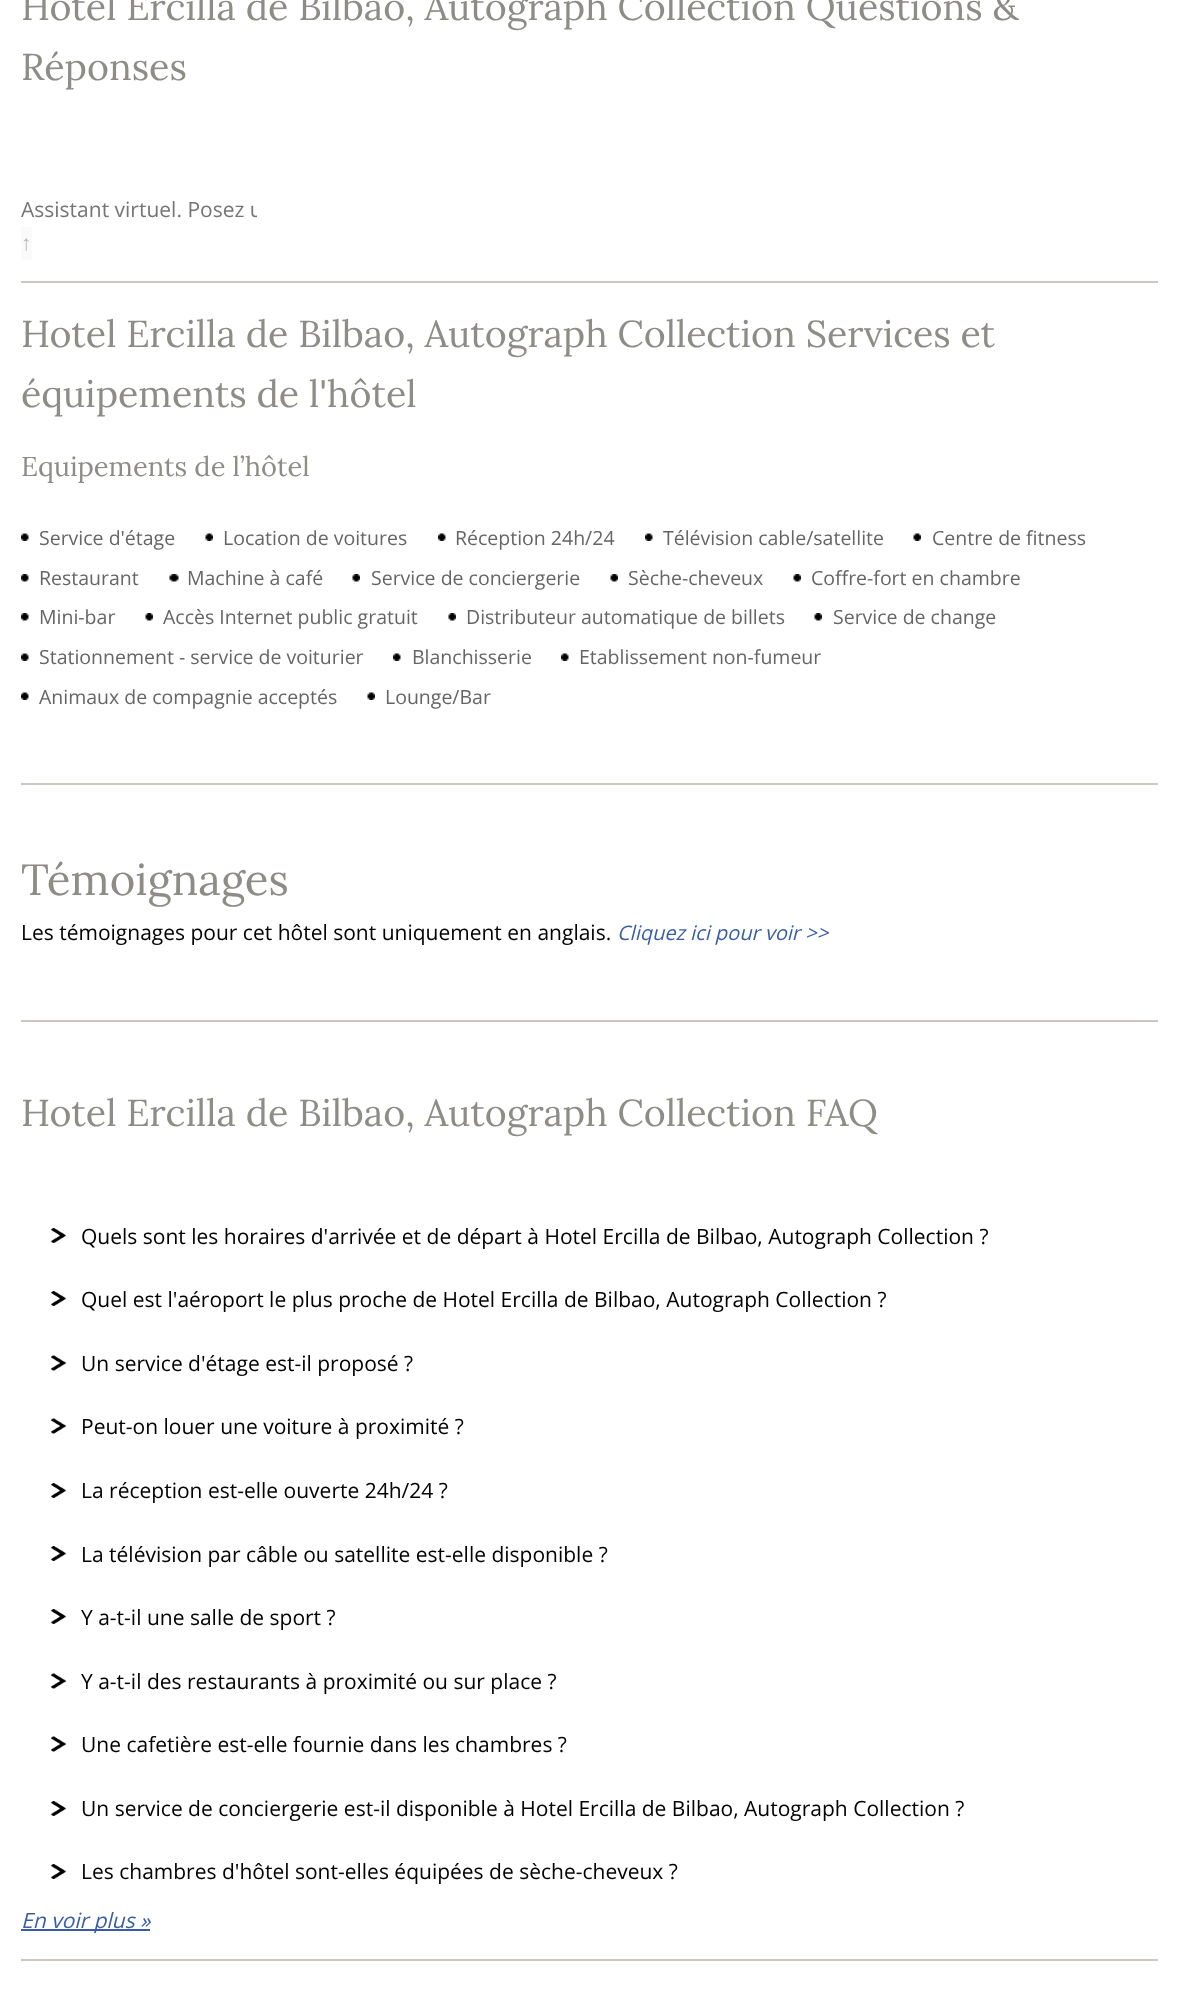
<!DOCTYPE html>
<meta charset="utf-8">
<style>body { margin: 0 } canvas { display: block }</style>
<canvas id="canvas" width="1179" height="1999"></canvas>
<img id="img1" src="images/1.png" hidden>
<img id="img2" src="images/2.png" hidden>
<img id="img3" src="images/3.png" hidden>
<img id="img4" src="images/4.png" hidden>
<img id="img5" src="images/5.png" hidden>
<img id="img6" src="images/6.png" hidden>
<img id="img7" src="images/7.png" hidden>
<img id="img8" src="images/8.png" hidden>
<img id="img9" src="images/9.png" hidden>
<img id="img10" src="images/10.png" hidden>
<script>
window.onload = function () {
    const canvas = document.getElementById('canvas');
    const context = canvas.getContext('2d');
    context.miterLimit = 4;
    context.fontKerning = 'normal';

    context.fillStyle = 'rgb(255, 255, 255)';
    context.fillRect(0, 0, 1179, 1999);
    context.fillStyle = 'rgb(250, 250, 250)';
    context.fillRect(21, 227, 11, 33);
    context.fillStyle = 'rgb(205, 199, 193)';
    context.fillRect(21, 281, 1137, 2);
    context.drawImage(document.getElementById('img1'), 21, 533, 8, 8);
    context.drawImage(document.getElementById('img2'), 205, 533, 8, 8);
    context.drawImage(document.getElementById('img3'), 438, 533, 8, 8);
    context.drawImage(document.getElementById('img1'), 645, 533, 8, 8);
    context.drawImage(document.getElementById('img2'), 913, 533, 8, 8);
    context.drawImage(document.getElementById('img4'), 21, 574, 8, 8);
    context.drawImage(document.getElementById('img5'), 169, 574, 10, 8);
    context.drawImage(document.getElementById('img6'), 352, 574, 8, 8);
    context.drawImage(document.getElementById('img6'), 610, 574, 8, 8);
    context.drawImage(document.getElementById('img7'), 793, 574, 8, 8);
    context.drawImage(document.getElementById('img4'), 21, 613, 8, 8);
    context.drawImage(document.getElementById('img7'), 145, 613, 8, 8);
    context.drawImage(document.getElementById('img7'), 448, 613, 8, 8);
    context.drawImage(document.getElementById('img7'), 814, 613, 8, 8);
    context.drawImage(document.getElementById('img1'), 21, 653, 8, 8);
    context.drawImage(document.getElementById('img3'), 393, 653, 8, 8);
    context.drawImage(document.getElementById('img3'), 561, 653, 8, 8);
    context.drawImage(document.getElementById('img1'), 21, 692, 8, 8);
    context.drawImage(document.getElementById('img8'), 367, 692, 8, 8);
    context.fillRect(21, 783, 1137, 2);
    context.fillRect(21, 1020, 1137, 2);
    context.drawImage(document.getElementById('img9'), 51, 1228, 15, 15);
    context.drawImage(document.getElementById('img9'), 51, 1291, 15, 15);
    context.drawImage(document.getElementById('img10'), 51, 1355, 15, 16);
    context.drawImage(document.getElementById('img10'), 51, 1418, 15, 16);
    context.drawImage(document.getElementById('img9'), 51, 1483, 15, 15);
    context.drawImage(document.getElementById('img9'), 51, 1546, 15, 15);
    context.drawImage(document.getElementById('img9'), 51, 1609, 15, 15);
    context.drawImage(document.getElementById('img10'), 51, 1673, 15, 16);
    context.drawImage(document.getElementById('img10'), 51, 1736, 15, 16);
    context.drawImage(document.getElementById('img9'), 51, 1801, 15, 15);
    context.drawImage(document.getElementById('img9'), 51, 1864, 15, 15);
    context.fillStyle = 'rgb(56, 93, 166)';
    context.fillRect(21, 1929, 129, 2);
    context.fillStyle = 'rgb(205, 199, 193)';
    context.fillRect(21, 1959, 1137, 2);
    context.font = '37.5px Lora';
    context.fillStyle = 'rgb(142, 140, 134)';
    context.fillText('Hotel Ercilla de Bilbao, Autograph Collection Questions &', 21, 20);
    context.fillText('Réponses', 21, 80);
    context.save();
    context.beginPath();
    context.rect(21, 194, 236, 28);
    context.clip();
    context.font = '21px Open Sans';
    context.fillStyle = 'rgb(117, 117, 117)';
    context.fillText('Assistant virtuel. Posez u', 21, 217);
    context.restore();
    context.font = '21px Liberation Sans';
    context.fillStyle = 'rgb(180, 180, 180)';
    context.fillText('↑', 21, 250);
    context.font = '37.5px Lora';
    context.fillStyle = 'rgb(142, 140, 134)';
    context.fillText('Hotel Ercilla de Bilbao, Autograph Collection Services et', 21, 347);
    context.fillText('équipements de l\'hôtel', 21, 407);
    context.font = '27.25px Lora';
    context.fillText('Equipements de l’hôtel', 21, 476);
    context.font = '19.5px Open Sans';
    context.fillStyle = 'rgb(101, 101, 101)';
    context.fillText('Service d\'étage', 39, 545);
    context.fillText('Location de voitures', 223, 545);
    context.fillText('Réception 24h/24', 455, 545);
    context.fillText('Télévision cable/satellite', 663, 545);
    context.fillText('Centre de fitness', 932, 545);
    context.fillText('Restaurant', 39, 585);
    context.fillText('Machine à café', 187, 585);
    context.fillText('Service de conciergerie', 371, 585);
    context.fillText('Sèche-cheveux', 628, 585);
    context.fillText('Coffre-fort en chambre', 811, 585);
    context.fillText('Mini-bar', 39, 624);
    context.fillText('Accès Internet public gratuit', 163, 624);
    context.fillText('Distributeur automatique de billets', 466, 624);
    context.fillText('Service de change', 833, 624);
    context.fillText('Stationnement - service de voiturier', 39, 664);
    context.fillText('Blanchisserie', 412, 664);
    context.fillText('Etablissement non-fumeur', 579, 664);
    context.fillText('Animaux de compagnie acceptés', 39, 704);
    context.fillText('Lounge/Bar', 385, 704);
    context.font = '43.75px Lora';
    context.fillStyle = 'rgb(142, 140, 134)';
    context.fillText('Témoignages', 21, 895);
    context.font = '21px Open Sans';
    context.fillStyle = 'rgb(0, 0, 0)';
    context.fillText('Les témoignages pour cet hôtel sont uniquement en anglais.', 21, 940);
    context.font = 'italic 20px Open Sans';
    context.fillStyle = 'rgb(56, 93, 166)';
    context.fillText('Cliquez ici pour voir >>', 617, 940);
    context.font = '37.5px Lora';
    context.fillStyle = 'rgb(142, 140, 134)';
    context.fillText('Hotel Ercilla de Bilbao, Autograph Collection FAQ', 21, 1126);
    context.font = '21px Open Sans';
    context.fillStyle = 'rgb(0, 0, 0)';
    context.fillText('Quels sont les horaires d\'arrivée et de départ à Hotel Ercilla de Bilbao, Autograph Collection ?', 81, 1244);
    context.fillText('Quel est l\'aéroport le plus proche de Hotel Ercilla de Bilbao, Autograph Collection ?', 81, 1307);
    context.fillText('Un service d\'étage est-il proposé ?', 81, 1371);
    context.fillText('Peut-on louer une voiture à proximité ?', 81, 1434);
    context.fillText('La réception est-elle ouverte 24h/24 ?', 81, 1498);
    context.fillText('La télévision par câble ou satellite est-elle disponible ?', 81, 1562);
    context.fillText('Y a-t-il une salle de sport ?', 81, 1625);
    context.fillText('Y a-t-il des restaurants à proximité ou sur place ?', 81, 1689);
    context.fillText('Une cafetière est-elle fournie dans les chambres ?', 81, 1752);
    context.fillText('Un service de conciergerie est-il disponible à Hotel Ercilla de Bilbao, Autograph Collection ?', 81, 1816);
    context.fillText('Les chambres d\'hôtel sont-elles équipées de sèche-cheveux ?', 81, 1879);
    context.font = 'italic 21px Open Sans';
    context.fillStyle = 'rgb(56, 93, 166)';
    context.fillText('En voir plus »', 21, 1928);
};
</script>
